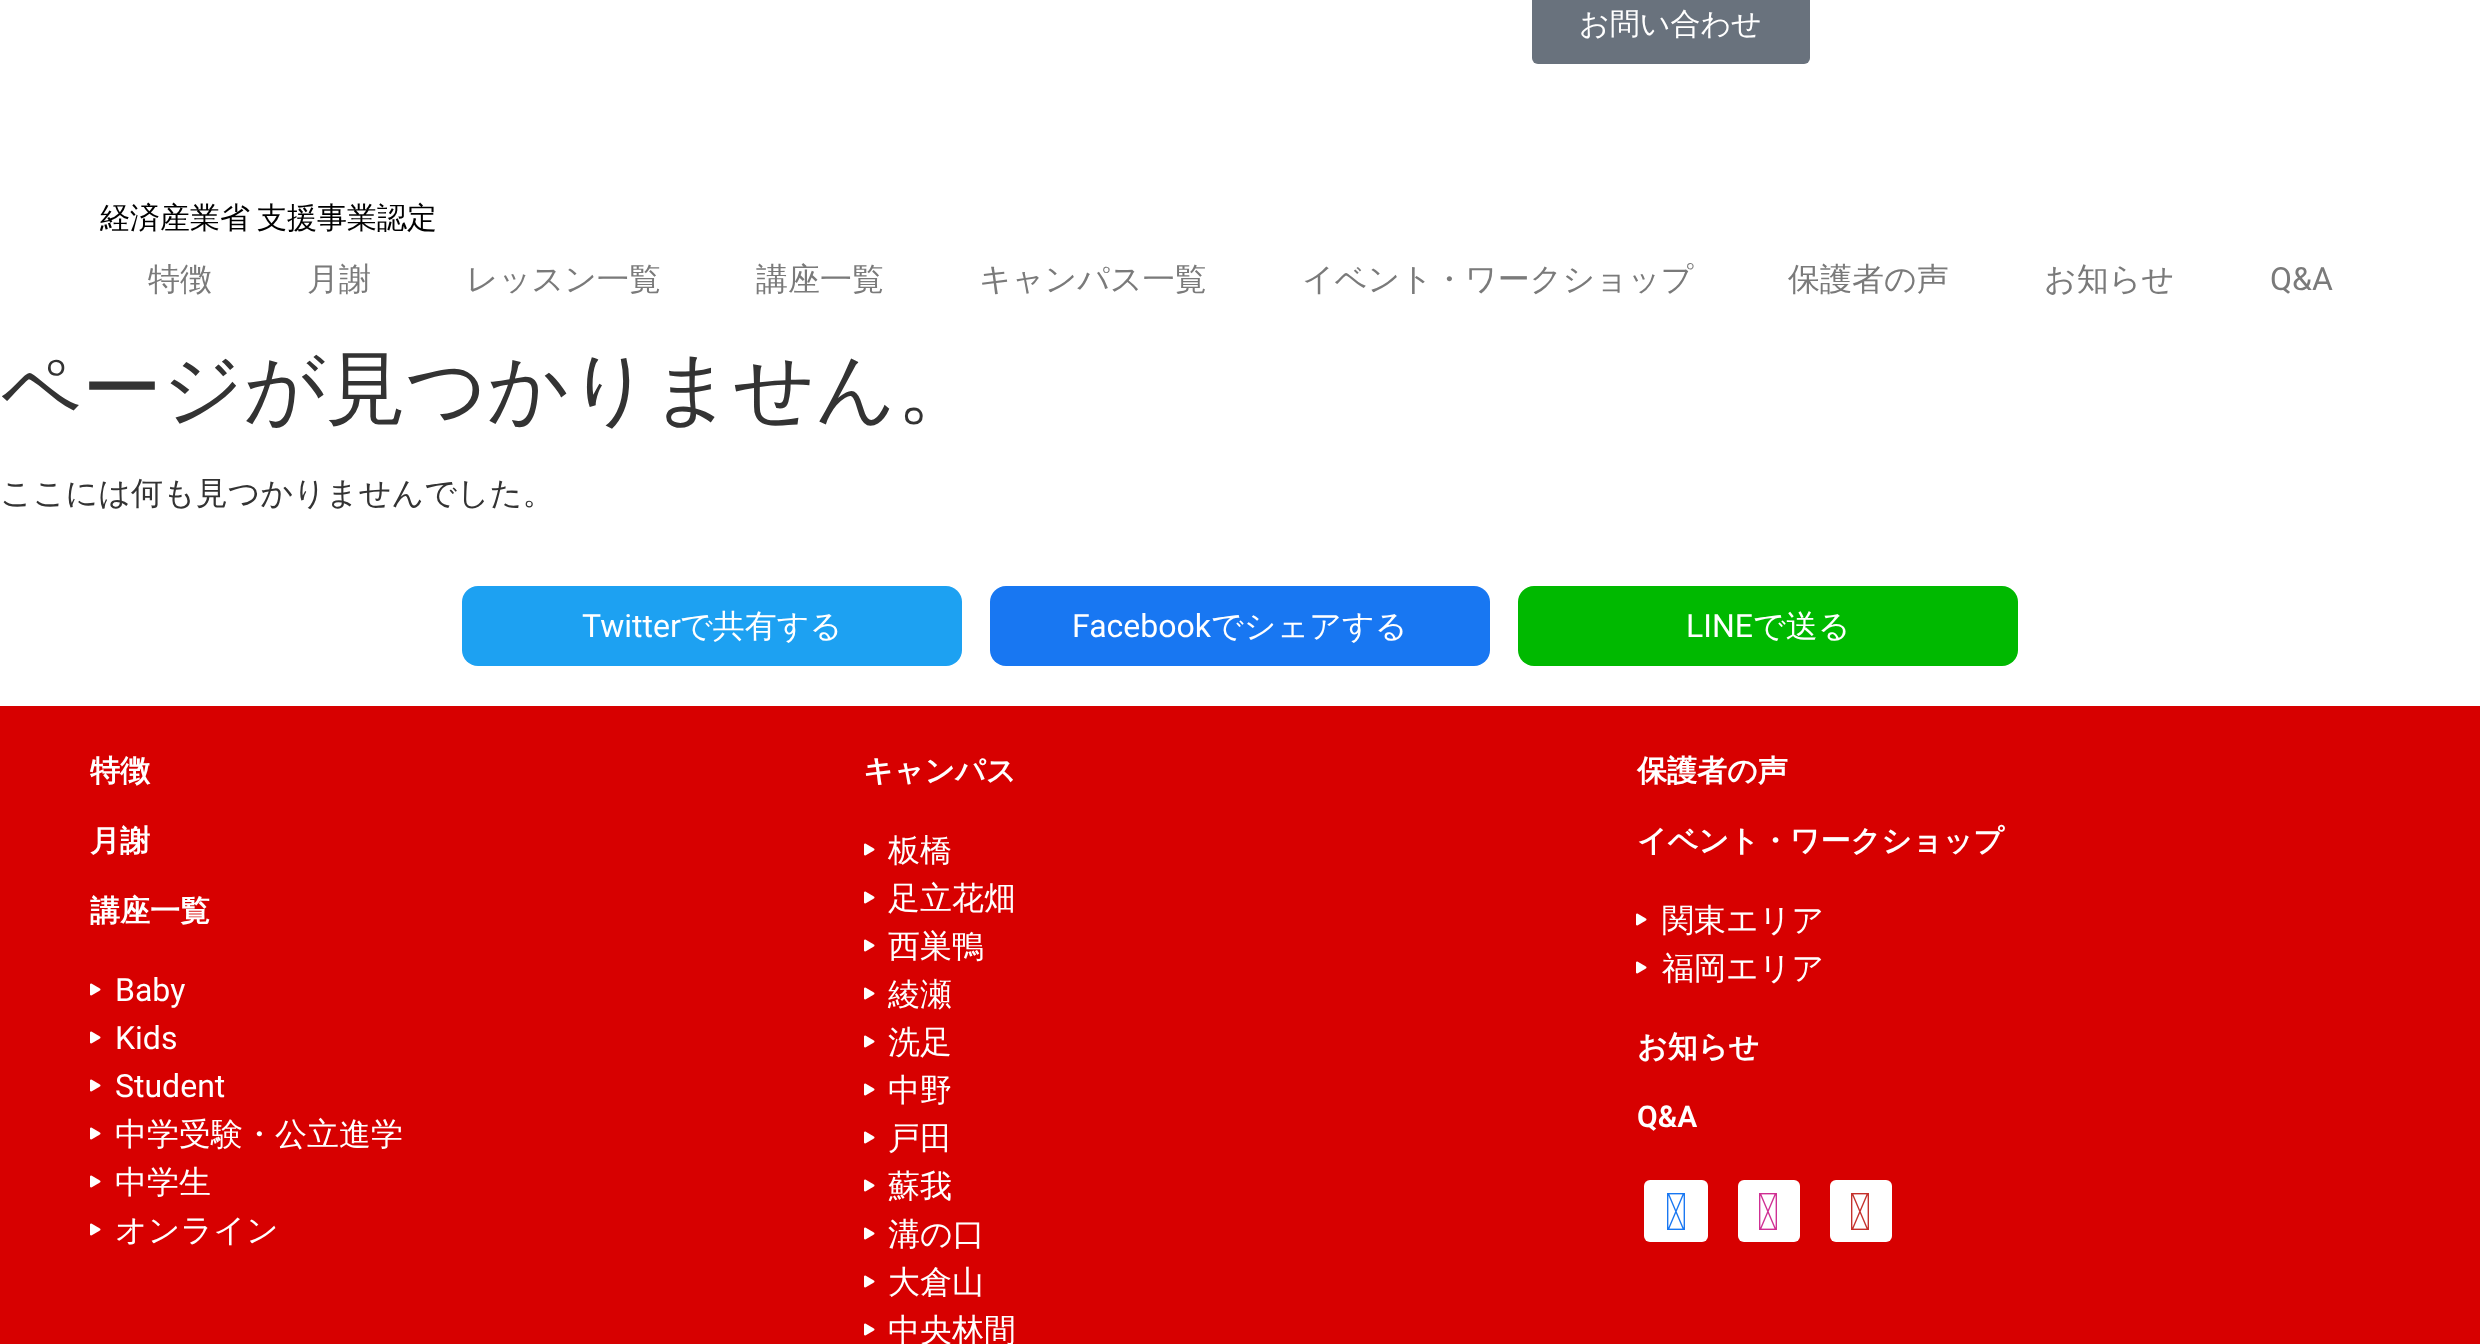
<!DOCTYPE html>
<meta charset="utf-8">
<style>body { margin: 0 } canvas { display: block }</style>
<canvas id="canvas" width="2480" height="1344"></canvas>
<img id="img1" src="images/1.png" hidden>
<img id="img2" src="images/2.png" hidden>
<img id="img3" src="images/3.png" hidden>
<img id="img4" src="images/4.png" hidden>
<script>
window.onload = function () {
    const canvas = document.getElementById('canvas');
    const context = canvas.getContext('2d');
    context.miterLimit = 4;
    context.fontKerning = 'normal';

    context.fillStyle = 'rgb(255, 255, 255)';
    context.fillRect(0, 0, 2480, 1344);
    context.fillStyle = 'rgb(105, 114, 125)';
    context.beginPath();
    context.roundRect(1532, -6, 278, 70, 6);
    context.fill();
    context.fillStyle = 'rgb(29, 161, 242)';
    context.beginPath();
    context.roundRect(462, 586, 500, 80, 16);
    context.fill();
    context.fillStyle = 'rgb(24, 119, 242)';
    context.beginPath();
    context.roundRect(990, 586, 500, 80, 16);
    context.fill();
    context.fillStyle = 'rgb(0, 185, 0)';
    context.beginPath();
    context.roundRect(1518, 586, 500, 80, 16);
    context.fill();
    context.fillStyle = 'rgb(215, 0, 0)';
    context.fillRect(0, 706, 2480, 638);
    context.drawImage(document.getElementById('img1'), 90, 983, 11, 13);
    context.drawImage(document.getElementById('img1'), 90, 1031, 11, 13);
    context.drawImage(document.getElementById('img1'), 90, 1079, 11, 13);
    context.drawImage(document.getElementById('img1'), 90, 1127, 11, 13);
    context.drawImage(document.getElementById('img1'), 90, 1175, 11, 13);
    context.drawImage(document.getElementById('img1'), 90, 1223, 11, 13);
    context.drawImage(document.getElementById('img1'), 864, 843, 11, 13);
    context.drawImage(document.getElementById('img1'), 864, 891, 11, 13);
    context.drawImage(document.getElementById('img1'), 864, 939, 11, 13);
    context.drawImage(document.getElementById('img1'), 864, 987, 11, 13);
    context.drawImage(document.getElementById('img1'), 864, 1035, 11, 13);
    context.drawImage(document.getElementById('img1'), 864, 1083, 11, 13);
    context.drawImage(document.getElementById('img1'), 864, 1131, 11, 13);
    context.drawImage(document.getElementById('img1'), 864, 1179, 11, 13);
    context.drawImage(document.getElementById('img1'), 864, 1227, 11, 13);
    context.drawImage(document.getElementById('img1'), 864, 1275, 11, 13);
    context.drawImage(document.getElementById('img1'), 864, 1323, 11, 13);
    context.drawImage(document.getElementById('img1'), 1636, 913, 11, 13);
    context.drawImage(document.getElementById('img1'), 1636, 961, 11, 13);
    context.fillStyle = 'rgb(255, 255, 255)';
    context.beginPath();
    context.roundRect(1644, 1180, 64, 62, 6);
    context.fill();
    context.drawImage(document.getElementById('img2'), 1667, 1193, 18, 37);
    context.beginPath();
    context.roundRect(1738, 1180, 62, 62, 6);
    context.fill();
    context.drawImage(document.getElementById('img3'), 1759, 1193, 18, 37);
    context.beginPath();
    context.roundRect(1830, 1180, 62, 62, 6);
    context.fill();
    context.drawImage(document.getElementById('img4'), 1851, 1193, 18, 37);
    context.font = '500 30px WenQuanYi Zen Hei';
    context.fillText('お問い合わせ', 1579, 34);
    context.wordSpacing = '-2px';
    context.fillStyle = 'rgb(0, 0, 0)';
    context.fillText('経済産業省 支援事業認定', 100, 228);
    context.wordSpacing = '0px';
    context.font = '500 32px WenQuanYi Zen Hei';
    context.fillStyle = 'rgb(122, 122, 122)';
    context.fillText('特徴', 148, 290);
    context.fillText('月謝', 307, 290);
    context.fillText('レッスン一覧', 466, 290);
    context.fillText('講座一覧', 756, 290);
    context.fillText('キャンパス一覧', 979, 290);
    context.fillText('イベント・ワークショップ', 1302, 290);
    context.fillText('保護者の声', 1788, 290);
    context.fillText('お知らせ', 2044, 290);
    context.font = '32px Roboto';
    context.fillText('Q&A', 2270, 290);
    context.font = '500 80px WenQuanYi Zen Hei';
    context.fillStyle = 'rgb(51, 51, 51)';
    context.fillText('ページが見つかりません。', 0, 416);
    context.font = '500 32px WenQuanYi Zen Hei';
    context.fillText('ここには何も見つかりませんでした。', 0, 504);
    context.font = '32px Roboto';
    context.fillStyle = 'rgb(255, 255, 255)';
    context.fillText('Twitter', 582, 637);
    context.font = '500 32px WenQuanYi Zen Hei';
    context.fillText('で共有する', 680, 637);
    context.font = '32px Roboto';
    context.fillText('Facebook', 1072, 637);
    context.font = '500 32px WenQuanYi Zen Hei';
    context.fillText('でシェアする', 1211, 637);
    context.font = '32px Roboto';
    context.fillText('LINE', 1686, 637);
    context.font = '500 32px WenQuanYi Zen Hei';
    context.fillText('で送る', 1753, 637);
    context.font = 'bold 30px WenQuanYi Zen Hei';
    context.fillText('特徴', 90, 781);
    context.fillText('月謝', 90, 851);
    context.fillText('講座一覧', 90, 921);
    context.font = '32px Roboto';
    context.fillText('Baby', 115, 1001);
    context.fillText('Kids', 115, 1049);
    context.fillText('Student', 115, 1097);
    context.font = '500 32px WenQuanYi Zen Hei';
    context.fillText('中学受験・公立進学', 115, 1145);
    context.fillText('中学生', 115, 1193);
    context.fillText('オンライン', 115, 1241);
    context.font = 'bold 30px WenQuanYi Zen Hei';
    context.fillText('キャンパス', 863, 781);
    context.font = '500 32px WenQuanYi Zen Hei';
    context.fillText('板橋', 888, 861);
    context.fillText('足立花畑', 888, 909);
    context.fillText('西巣鴨', 888, 957);
    context.fillText('綾瀬', 888, 1005);
    context.fillText('洗足', 888, 1053);
    context.fillText('中野', 888, 1101);
    context.fillText('戸田', 888, 1149);
    context.fillText('蘇我', 888, 1197);
    context.fillText('溝の口', 888, 1245);
    context.fillText('大倉山', 888, 1293);
    context.fillText('中央林間', 888, 1341);
    context.font = 'bold 30px WenQuanYi Zen Hei';
    context.fillText('保護者の声', 1637, 781);
    context.fillText('イベント・ワークショップ', 1637, 851);
    context.font = '500 32px WenQuanYi Zen Hei';
    context.fillText('関東エリア', 1662, 931);
    context.fillText('福岡エリア', 1662, 979);
    context.font = 'bold 30px WenQuanYi Zen Hei';
    context.fillText('お知らせ', 1637, 1057);
    context.font = '600 30px Roboto';
    context.fillText('Q&A', 1637, 1127);
};
</script>
